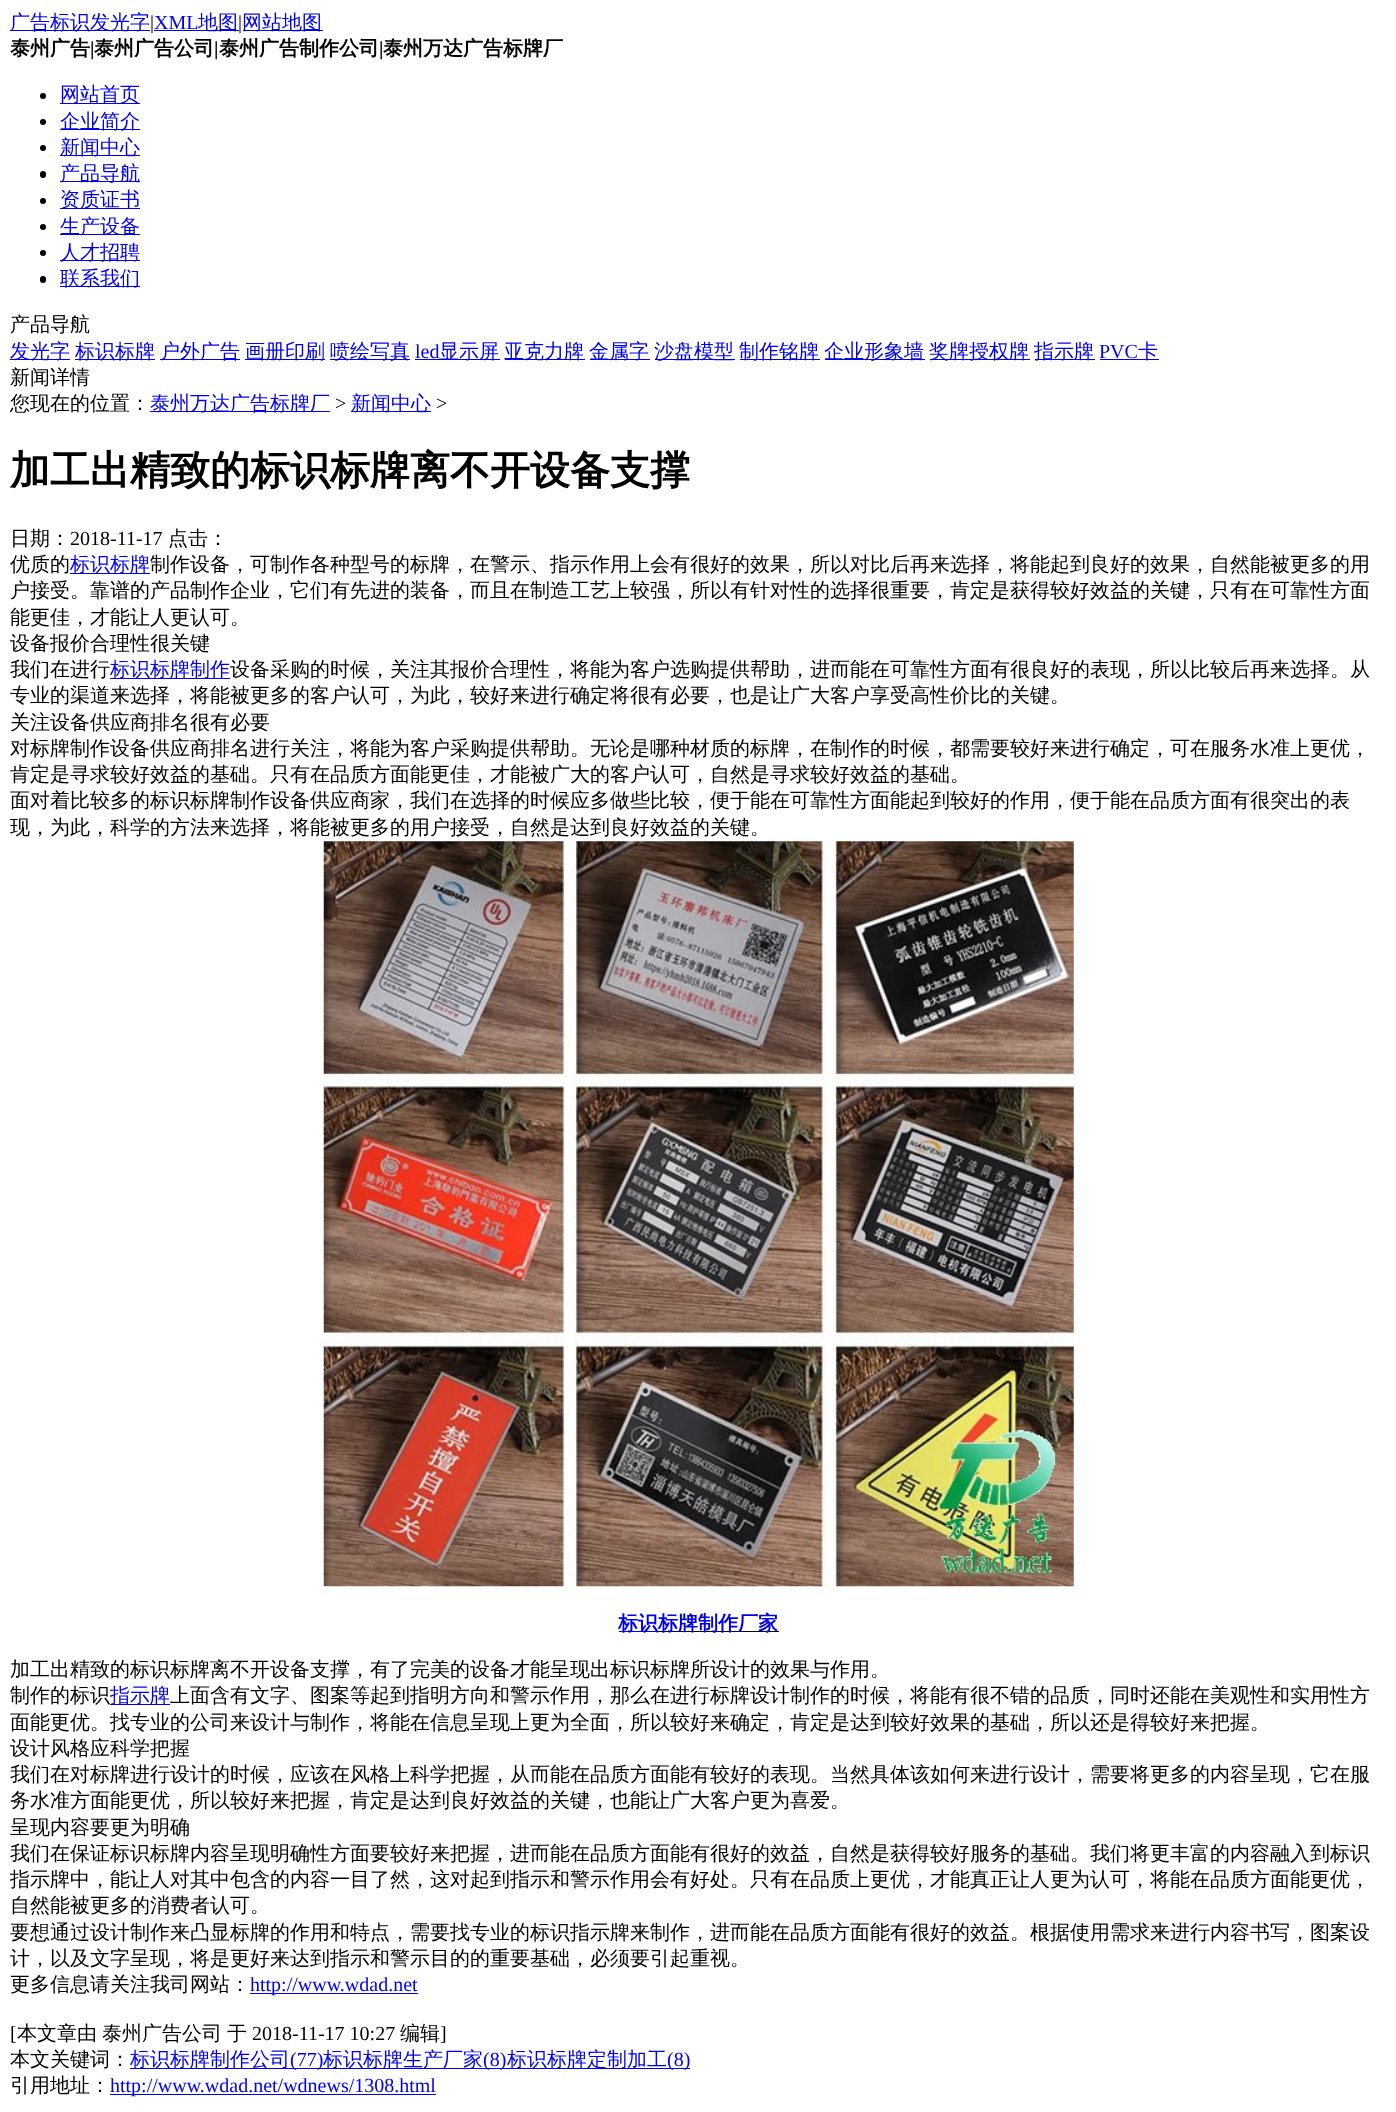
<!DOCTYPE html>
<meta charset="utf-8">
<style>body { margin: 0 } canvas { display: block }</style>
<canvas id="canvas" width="1396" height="2112"></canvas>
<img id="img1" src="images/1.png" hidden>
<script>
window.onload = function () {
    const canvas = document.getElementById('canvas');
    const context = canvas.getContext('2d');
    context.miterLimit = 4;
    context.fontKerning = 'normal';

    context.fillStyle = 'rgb(255, 255, 255)';
    context.fillRect(0, 0, 1396, 2112);
    context.fillStyle = 'rgb(0, 0, 238)';
    context.fillRect(10, 30, 140, 1);
    context.fillRect(154, 30, 85, 1);
    context.fillRect(243, 30, 80, 1);
    context.fillStyle = 'rgb(0, 0, 0)';
    context.beginPath();
    context.arc(43, 96, 3, 0, 2 * Math.PI);
    context.fill();
    context.fillStyle = 'rgb(0, 0, 238)';
    context.fillRect(60, 103, 80, 1);
    context.fillStyle = 'rgb(0, 0, 0)';
    context.beginPath();
    context.arc(43, 122, 3, 0, 2 * Math.PI);
    context.fill();
    context.fillStyle = 'rgb(0, 0, 238)';
    context.fillRect(60, 129, 80, 1);
    context.fillStyle = 'rgb(0, 0, 0)';
    context.beginPath();
    context.arc(43, 148, 3, 0, 2 * Math.PI);
    context.fill();
    context.fillStyle = 'rgb(0, 0, 238)';
    context.fillRect(60, 155, 80, 1);
    context.fillStyle = 'rgb(0, 0, 0)';
    context.beginPath();
    context.roundRect(40, 171, 6, 7, 3);
    context.fill();
    context.fillStyle = 'rgb(0, 0, 238)';
    context.fillRect(60, 181, 80, 1);
    context.fillStyle = 'rgb(0, 0, 0)';
    context.beginPath();
    context.arc(43, 201, 3, 0, 2 * Math.PI);
    context.fill();
    context.fillStyle = 'rgb(0, 0, 238)';
    context.fillRect(60, 208, 80, 1);
    context.fillStyle = 'rgb(0, 0, 0)';
    context.beginPath();
    context.arc(43, 227, 3, 0, 2 * Math.PI);
    context.fill();
    context.fillStyle = 'rgb(0, 0, 238)';
    context.fillRect(60, 234, 80, 1);
    context.fillStyle = 'rgb(0, 0, 0)';
    context.beginPath();
    context.arc(43, 253, 3, 0, 2 * Math.PI);
    context.fill();
    context.fillStyle = 'rgb(0, 0, 238)';
    context.fillRect(60, 260, 80, 1);
    context.fillStyle = 'rgb(0, 0, 0)';
    context.beginPath();
    context.roundRect(40, 276, 6, 7, 3);
    context.fill();
    context.fillStyle = 'rgb(0, 0, 238)';
    context.fillRect(60, 286, 80, 1);
    context.fillRect(10, 359, 60, 1);
    context.fillRect(75, 359, 80, 1);
    context.fillRect(160, 359, 80, 1);
    context.fillRect(245, 359, 80, 1);
    context.fillRect(330, 359, 80, 1);
    context.fillRect(415, 359, 85, 1);
    context.fillRect(505, 359, 80, 1);
    context.fillRect(590, 359, 60, 1);
    context.fillRect(655, 359, 80, 1);
    context.fillRect(740, 359, 80, 1);
    context.fillRect(825, 359, 100, 1);
    context.fillRect(930, 359, 100, 1);
    context.fillRect(1035, 359, 60, 1);
    context.fillRect(1100, 359, 59, 1);
    context.fillRect(150, 411, 180, 1);
    context.fillRect(351, 411, 80, 1);
    context.fillRect(70, 573, 80, 1);
    context.fillRect(110, 678, 120, 1);
    context.drawImage(document.getElementById('img1'), 323, 841, 751, 746);
    context.fillRect(619, 1631, 40, 1);
    context.fillStyle = 'rgb(0, 0, 0)';
    context.fillRect(659, 1631, 120, 1);
    context.fillStyle = 'rgb(0, 0, 238)';
    context.fillRect(110, 1704, 60, 1);
    context.fillRect(250, 1993, 168, 1);
    context.fillRect(130, 2068, 560, 1);
    context.fillRect(110, 2094, 326, 1);
    context.font = '500 20px WenQuanYi Zen Hei';
    context.fillText('广告标识发光字', 10, 29);
    context.font = '20px Liberation Serif';
    context.fillStyle = 'rgb(0, 0, 0)';
    context.fillText('|', 150, 29);
    context.fillStyle = 'rgb(0, 0, 238)';
    context.fillText('XML', 154, 29);
    context.font = '500 20px WenQuanYi Zen Hei';
    context.fillText('地图', 198, 29);
    context.font = '20px Liberation Serif';
    context.fillStyle = 'rgb(0, 0, 0)';
    context.fillText('|', 238, 29);
    context.font = '500 20px WenQuanYi Zen Hei';
    context.fillStyle = 'rgb(0, 0, 238)';
    context.fillText('网站地图', 242, 29);
    context.font = 'bold 20px WenQuanYi Zen Hei';
    context.fillStyle = 'rgb(0, 0, 0)';
    context.fillText('泰州广告', 10, 55);
    context.font = 'bold 20px Liberation Serif';
    context.fillText('|', 90, 55);
    context.font = 'bold 20px WenQuanYi Zen Hei';
    context.fillText('泰州广告公司', 94, 55);
    context.font = 'bold 20px Liberation Serif';
    context.fillText('|', 214, 55);
    context.font = 'bold 20px WenQuanYi Zen Hei';
    context.fillText('泰州广告制作公司', 219, 55);
    context.font = 'bold 20px Liberation Serif';
    context.fillText('|', 379, 55);
    context.font = 'bold 20px WenQuanYi Zen Hei';
    context.fillText('泰州万达广告标牌厂', 383, 55);
    context.font = '500 20px WenQuanYi Zen Hei';
    context.fillStyle = 'rgb(0, 0, 238)';
    context.fillText('网站首页', 60, 101);
    context.fillText('企业简介', 60, 128);
    context.fillText('新闻中心', 60, 154);
    context.fillText('产品导航', 60, 180);
    context.fillText('资质证书', 60, 206);
    context.fillText('生产设备', 60, 233);
    context.fillText('人才招聘', 60, 259);
    context.fillText('联系我们', 60, 285);
    context.fillStyle = 'rgb(0, 0, 0)';
    context.fillText('产品导航', 10, 331);
    context.fillStyle = 'rgb(0, 0, 238)';
    context.fillText('发光字', 10, 358);
    context.fillText('标识标牌', 75, 358);
    context.fillText('户外广告', 160, 358);
    context.fillText('画册印刷', 245, 358);
    context.fillText('喷绘写真', 330, 358);
    context.font = '20px Liberation Serif';
    context.fillText('led', 415, 358);
    context.font = '500 20px WenQuanYi Zen Hei';
    context.fillText('显示屏', 439, 358);
    context.fillText('亚克力牌', 504, 358);
    context.fillText('金属字', 589, 358);
    context.fillText('沙盘模型', 654, 358);
    context.fillText('制作铭牌', 739, 358);
    context.fillText('企业形象墙', 824, 358);
    context.fillText('奖牌授权牌', 929, 358);
    context.fillText('指示牌', 1034, 358);
    context.font = '20px Liberation Serif';
    context.fillText('PVC', 1099, 358);
    context.font = '500 20px WenQuanYi Zen Hei';
    context.fillText('卡', 1138, 358);
    context.fillStyle = 'rgb(0, 0, 0)';
    context.fillText('新闻详情', 10, 384);
    context.fillText('您现在的位置：', 10, 410);
    context.fillStyle = 'rgb(0, 0, 238)';
    context.fillText('泰州万达广告标牌厂', 150, 410);
    context.font = '20px Liberation Serif';
    context.fillStyle = 'rgb(0, 0, 0)';
    context.fillText('>', 335, 410);
    context.font = '500 20px WenQuanYi Zen Hei';
    context.fillStyle = 'rgb(0, 0, 238)';
    context.fillText('新闻中心', 351, 410);
    context.font = '20px Liberation Serif';
    context.fillStyle = 'rgb(0, 0, 0)';
    context.fillText('>', 436, 410);
    context.font = 'bold 40px WenQuanYi Zen Hei';
    context.fillText('加工出精致的标识标牌离不开设备支撑', 10, 484);
    context.font = '500 20px WenQuanYi Zen Hei';
    context.fillText('日期：', 10, 545);
    context.font = '20px Liberation Serif';
    context.fillText('2018-11-17', 70, 545);
    context.font = '500 20px WenQuanYi Zen Hei';
    context.fillText('点击：', 168, 545);
    context.fillText('优质的', 10, 571);
    context.fillStyle = 'rgb(0, 0, 238)';
    context.fillText('标识标牌', 70, 571);
    context.fillStyle = 'rgb(0, 0, 0)';
    context.fillText('制作设备，可制作各种型号的标牌，在警示、指示作用上会有很好的效果，所以对比后再来选择，将能起到良好的效果，自然能被更多的用', 150, 571);
    context.fillText('户接受。靠谱的产品制作企业，它们有先进的装备，而且在制造工艺上较强，所以有针对性的选择很重要，肯定是获得较好效益的关键，只有在可靠性方面', 10, 597);
    context.fillText('能更佳，才能让人更认可。', 10, 624);
    context.fillText('设备报价合理性很关键', 10, 650);
    context.fillText('我们在进行', 10, 676);
    context.fillStyle = 'rgb(0, 0, 238)';
    context.fillText('标识标牌制作', 110, 676);
    context.fillStyle = 'rgb(0, 0, 0)';
    context.fillText('设备采购的时候，关注其报价合理性，将能为客户选购提供帮助，进而能在可靠性方面有很良好的表现，所以比较后再来选择。从', 230, 676);
    context.fillText('专业的渠道来选择，将能被更多的客户认可，为此，较好来进行确定将很有必要，也是让广大客户享受高性价比的关键。', 10, 702);
    context.fillText('关注设备供应商排名很有必要', 10, 729);
    context.fillText('对标牌制作设备供应商排名进行关注，将能为客户采购提供帮助。无论是哪种材质的标牌，在制作的时候，都需要较好来进行确定，可在服务水准上更优，', 10, 755);
    context.fillText('肯定是寻求较好效益的基础。只有在品质方面能更佳，才能被广大的客户认可，自然是寻求较好效益的基础。', 10, 781);
    context.fillText('面对着比较多的标识标牌制作设备供应商家，我们在选择的时候应多做些比较，便于能在可靠性方面能起到较好的作用，便于能在品质方面有很突出的表', 10, 807);
    context.fillText('现，为此，科学的方法来选择，将能被更多的用户接受，自然是达到良好效益的关键。', 10, 834);
    context.font = 'bold 20px WenQuanYi Zen Hei';
    context.fillStyle = 'rgb(0, 0, 238)';
    context.fillText('标识', 618, 1630);
    context.fillText('标牌制作厂家', 658, 1630);
    context.font = '500 20px WenQuanYi Zen Hei';
    context.fillStyle = 'rgb(0, 0, 0)';
    context.fillText('加工出精致的标识标牌离不开设备支撑，有了完美的设备才能呈现出标识标牌所设计的效果与作用。', 10, 1676);
    context.fillText('制作的标识', 10, 1702);
    context.fillStyle = 'rgb(0, 0, 238)';
    context.fillText('指示牌', 110, 1702);
    context.fillStyle = 'rgb(0, 0, 0)';
    context.fillText('上面含有文字、图案等起到指明方向和警示作用，那么在进行标牌设计制作的时候，将能有很不错的品质，同时还能在美观性和实用性方', 170, 1702);
    context.fillText('面能更优。找专业的公司来设计与制作，将能在信息呈现上更为全面，所以较好来确定，肯定是达到较好效果的基础，所以还是得较好来把握。', 10, 1729);
    context.fillText('设计风格应科学把握', 10, 1755);
    context.fillText('我们在对标牌进行设计的时候，应该在风格上科学把握，从而能在品质方面能有较好的表现。当然具体该如何来进行设计，需要将更多的内容呈现，它在服', 10, 1781);
    context.fillText('务水准方面能更优，所以较好来把握，肯定是达到良好效益的关键，也能让广大客户更为喜爱。', 10, 1807);
    context.fillText('呈现内容要更为明确', 10, 1834);
    context.fillText('我们在保证标识标牌内容呈现明确性方面要较好来把握，进而能在品质方面能有很好的效益，自然是获得较好服务的基础。我们将更丰富的内容融入到标识', 10, 1860);
    context.fillText('指示牌中，能让人对其中包含的内容一目了然，这对起到指示和警示作用会有好处。只有在品质上更优，才能真正让人更为认可，将能在品质方面能更优，', 10, 1886);
    context.fillText('自然能被更多的消费者认可。', 10, 1912);
    context.fillText('要想通过设计制作来凸显标牌的作用和特点，需要找专业的标识指示牌来制作，进而能在品质方面能有很好的效益。根据使用需求来进行内容书写，图案设', 10, 1939);
    context.fillText('计，以及文字呈现，将是更好来达到指示和警示目的的重要基础，必须要引起重视。', 10, 1965);
    context.fillText('更多信息请关注我司网站：', 10, 1991);
    context.font = '20px Liberation Serif';
    context.fillStyle = 'rgb(0, 0, 238)';
    context.fillText('http://www.wdad.net', 250, 1991);
    context.fillStyle = 'rgb(0, 0, 0)';
    context.fillText('[', 10, 2040);
    context.font = '500 20px WenQuanYi Zen Hei';
    context.fillText('本文章由', 17, 2040);
    context.fillText('泰州广告公司', 102, 2040);
    context.fillText('于', 227, 2040);
    context.font = '20px Liberation Serif';
    context.fillText('2018-11-17 10:27', 252, 2040);
    context.font = '500 20px WenQuanYi Zen Hei';
    context.fillText('编辑', 400, 2040);
    context.font = '20px Liberation Serif';
    context.fillText(']', 440, 2040);
    context.font = '500 20px WenQuanYi Zen Hei';
    context.fillText('本文关键词：', 10, 2066);
    context.fillStyle = 'rgb(0, 0, 238)';
    context.fillText('标识标牌制作公司', 130, 2066);
    context.font = '20px Liberation Serif';
    context.fillText('(77)', 290, 2066);
    context.font = '500 20px WenQuanYi Zen Hei';
    context.fillText('标识标牌生产厂家', 323, 2066);
    context.font = '20px Liberation Serif';
    context.fillText('(8)', 483, 2066);
    context.font = '500 20px WenQuanYi Zen Hei';
    context.fillText('标识标牌定制加工', 507, 2066);
    context.font = '20px Liberation Serif';
    context.fillText('(8)', 667, 2066);
    context.font = '500 20px WenQuanYi Zen Hei';
    context.fillStyle = 'rgb(0, 0, 0)';
    context.fillText('引用地址：', 10, 2092);
    context.font = '20px Liberation Serif';
    context.fillStyle = 'rgb(0, 0, 238)';
    context.fillText('http://www.wdad.net/wdnews/1308.html', 110, 2092);
};
</script>
